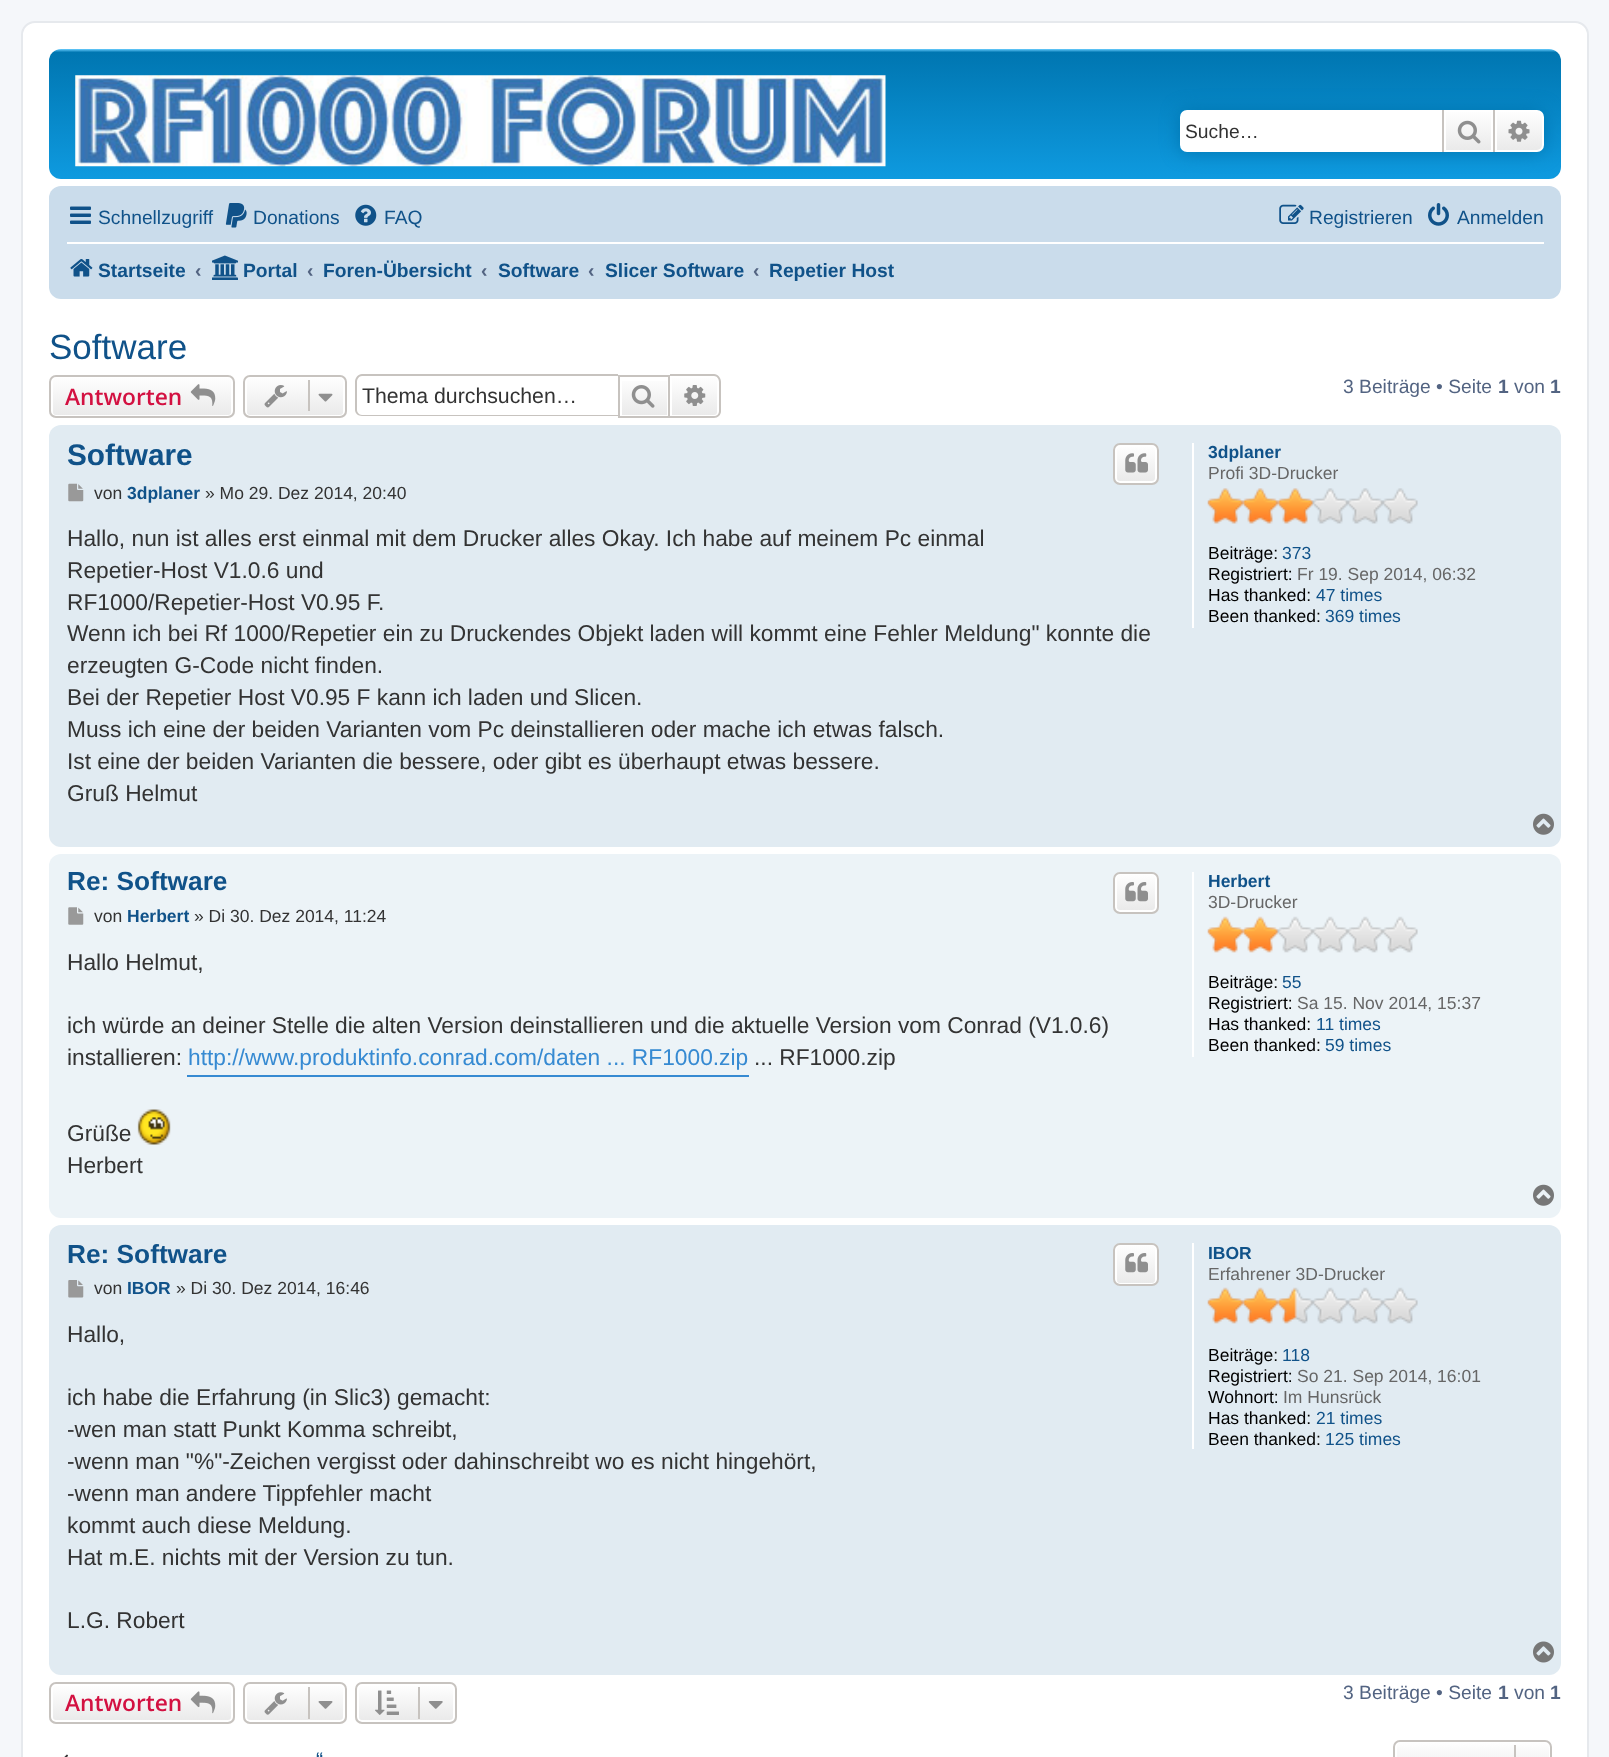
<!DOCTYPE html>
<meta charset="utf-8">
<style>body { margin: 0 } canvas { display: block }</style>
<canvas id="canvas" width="1609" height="1757"></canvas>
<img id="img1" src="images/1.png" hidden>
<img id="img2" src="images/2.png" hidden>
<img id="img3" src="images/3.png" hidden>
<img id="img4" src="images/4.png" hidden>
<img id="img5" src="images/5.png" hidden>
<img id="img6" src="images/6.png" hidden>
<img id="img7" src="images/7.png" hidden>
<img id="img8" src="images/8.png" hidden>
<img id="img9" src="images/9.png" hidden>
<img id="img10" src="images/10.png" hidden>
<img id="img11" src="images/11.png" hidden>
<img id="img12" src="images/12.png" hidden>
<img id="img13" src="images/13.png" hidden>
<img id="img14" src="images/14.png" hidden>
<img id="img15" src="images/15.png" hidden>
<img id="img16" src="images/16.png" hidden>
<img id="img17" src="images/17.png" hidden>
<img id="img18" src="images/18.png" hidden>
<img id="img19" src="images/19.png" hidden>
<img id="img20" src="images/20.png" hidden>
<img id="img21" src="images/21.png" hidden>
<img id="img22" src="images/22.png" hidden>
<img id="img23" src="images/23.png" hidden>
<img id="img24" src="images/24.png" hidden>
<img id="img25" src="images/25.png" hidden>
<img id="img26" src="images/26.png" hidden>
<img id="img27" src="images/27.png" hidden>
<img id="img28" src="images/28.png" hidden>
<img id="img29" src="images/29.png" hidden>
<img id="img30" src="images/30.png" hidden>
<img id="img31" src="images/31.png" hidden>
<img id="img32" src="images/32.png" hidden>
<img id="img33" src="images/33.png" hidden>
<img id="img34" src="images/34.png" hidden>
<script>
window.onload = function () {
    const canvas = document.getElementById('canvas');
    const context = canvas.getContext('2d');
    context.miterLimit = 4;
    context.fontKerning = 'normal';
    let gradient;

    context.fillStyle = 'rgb(245, 247, 250)';
    context.fillRect(0, 0, 1609, 1757);
    context.fillStyle = 'rgb(255, 255, 255)';
    context.beginPath();
    context.roundRect(22, 22, 1566, 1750, 13);
    context.fill();
    context.strokeStyle = 'rgb(230, 233, 237)';
    context.lineWidth = 2;
    context.stroke();
    gradient = context.createLinearGradient(805, 49, 805, 210);
    gradient.addColorStop(0, 'rgb(106, 206, 255)');
    gradient.addColorStop(0.02, 'rgb(0, 118, 177)');
    gradient.addColorStop(1, 'rgb(18, 163, 235)');
    context.fillStyle = gradient;
    context.beginPath();
    context.roundRect(49, 49, 1512, 130, 12);
    context.fill();
    context.drawImage(document.getElementById('img1'), 75, 75, 811, 92);
    context.fillStyle = 'rgb(0, 117, 176)';
    context.filter = 'blur(9px)';
    context.beginPath();
    context.roundRect(1180, 110, 364, 42, 7);
    context.fill();
    context.filter = 'none';
    context.fillStyle = 'rgb(255, 255, 255)';
    context.beginPath();
    context.roundRect(1180, 110, 262, 42, [7, 0, 0, 7]);
    context.fill();
    gradient = context.createLinearGradient(1468, 110, 1468, 152);
    gradient.addColorStop(0, 'rgb(255, 255, 255)');
    gradient.addColorStop(1, 'rgb(233, 233, 233)');
    context.fillStyle = gradient;
    context.fillRect(1446, 112, 45, 38);
    context.strokeStyle = 'rgb(255, 255, 255)';
    context.strokeRect(1445, 111, 47, 40);
    context.fillStyle = 'rgb(199, 195, 191)';
    context.fillRect(1493, 110, 2, 42);
    context.fillRect(1442, 110, 2, 42);
    context.drawImage(document.getElementById('img2'), 1457, 120, 24, 24);
    gradient = context.createLinearGradient(1519, 110, 1519, 152);
    gradient.addColorStop(0, 'rgb(255, 255, 255)');
    gradient.addColorStop(1, 'rgb(233, 233, 233)');
    context.fillStyle = gradient;
    context.beginPath();
    context.roundRect(1496, 111, 47, 40, [0, 6, 6, 0]);
    context.fill();
    context.stroke();
    context.drawImage(document.getElementById('img3'), 1508, 120, 22, 22);
    context.fillStyle = 'rgb(202, 220, 235)';
    context.beginPath();
    context.roundRect(49, 186, 1512, 113, 12);
    context.fill();
    context.drawImage(document.getElementById('img4'), 70, 206, 21, 18);
    context.drawImage(document.getElementById('img5'), 225, 203, 22, 25);
    context.drawImage(document.getElementById('img6'), 355, 204, 22, 22);
    context.drawImage(document.getElementById('img7'), 1279, 204, 25, 20);
    context.drawImage(document.getElementById('img8'), 1428, 203, 21, 23);
    context.fillStyle = 'rgb(255, 255, 255)';
    context.fillRect(67, 242, 1477, 2);
    context.drawImage(document.getElementById('img9'), 70, 259, 23, 18);
    context.drawImage(document.getElementById('img10'), 212, 255, 26, 25);
    context.save();
    context.beginPath();
    context.roundRect(49, 375, 186, 43, 7);
    context.clip();
    gradient = context.createLinearGradient(142, 376, 142, 417);
    gradient.addColorStop(0, 'rgb(255, 255, 255)');
    gradient.addColorStop(1, 'rgb(233, 233, 233)');
    context.fillStyle = gradient;
    context.fillRect(49, 376, 186, 41);
    context.restore();
    context.beginPath();
    context.roundRect(52, 377, 180, 39, 4);
    context.stroke();
    context.beginPath();
    context.roundRect(50, 376, 184, 41, 6);
    context.strokeStyle = 'rgb(199, 195, 191)';
    context.stroke();
    context.drawImage(document.getElementById('img11'), 190, 384, 26, 22);
    context.save();
    context.beginPath();
    context.roundRect(243, 375, 104, 43, 7);
    context.clip();
    gradient = context.createLinearGradient(295, 376, 295, 417);
    gradient.addColorStop(0, 'rgb(255, 255, 255)');
    gradient.addColorStop(1, 'rgb(233, 233, 233)');
    context.fillStyle = gradient;
    context.fillRect(243, 376, 104, 41);
    context.restore();
    context.beginPath();
    context.roundRect(246, 377, 98, 39, 4);
    context.strokeStyle = 'rgb(255, 255, 255)';
    context.stroke();
    context.beginPath();
    context.roundRect(244, 376, 102, 41, 6);
    context.strokeStyle = 'rgb(199, 195, 191)';
    context.stroke();
    context.drawImage(document.getElementById('img12'), 264, 385, 23, 23);
    context.fillStyle = 'rgb(199, 195, 191)';
    context.fillRect(308, 380, 2, 31);
    context.drawImage(document.getElementById('img13'), 318, 393, 15, 9);
    context.beginPath();
    context.moveTo(362, 374);
    context.lineTo(618, 374);
    context.lineTo(618, 416);
    context.lineTo(362, 416);
    context.bezierCurveTo(358, 416, 355, 413, 355, 410);
    context.lineTo(355, 382);
    context.bezierCurveTo(355, 378, 358, 374, 362, 374);
    context.closePath();
    context.moveTo(362, 376);
    context.lineTo(618, 376);
    context.lineTo(618, 415);
    context.lineTo(362, 415);
    context.bezierCurveTo(359, 415, 357, 412, 357, 410);
    context.lineTo(357, 382);
    context.bezierCurveTo(357, 379, 359, 376, 362, 376);
    context.closePath();
    context.fill('evenodd');
    gradient = context.createLinearGradient(644, 376, 644, 417);
    gradient.addColorStop(0, 'rgb(255, 255, 255)');
    gradient.addColorStop(1, 'rgb(233, 233, 233)');
    context.fillStyle = gradient;
    context.fillRect(622, 381, 45, 34);
    context.strokeRect(619, 376, 50, 41);
    context.drawImage(document.getElementById('img14'), 631, 385, 24, 23);
    gradient = context.createLinearGradient(695, 376, 695, 417);
    gradient.addColorStop(0, 'rgb(255, 255, 255)');
    gradient.addColorStop(1, 'rgb(233, 233, 233)');
    context.fillStyle = gradient;
    context.beginPath();
    context.roundRect(671, 377, 47, 39, [0, 4, 4, 0]);
    context.fill();
    context.strokeStyle = 'rgb(255, 255, 255)';
    context.stroke();
    context.fillStyle = 'rgb(199, 195, 191)';
    context.beginPath();
    context.moveTo(670, 374);
    context.lineTo(714, 374);
    context.bezierCurveTo(718, 374, 721, 378, 721, 382);
    context.lineTo(721, 411);
    context.bezierCurveTo(721, 415, 718, 418, 714, 418);
    context.lineTo(670, 418);
    context.closePath();
    context.moveTo(670, 376);
    context.lineTo(714, 376);
    context.bezierCurveTo(717, 376, 719, 379, 719, 382);
    context.lineTo(719, 411);
    context.bezierCurveTo(719, 414, 717, 416, 714, 416);
    context.lineTo(670, 416);
    context.closePath();
    context.fill('evenodd');
    context.drawImage(document.getElementById('img15'), 684, 385, 22, 21);
    context.fillStyle = 'rgb(225, 235, 242)';
    context.beginPath();
    context.roundRect(49, 425, 1512, 422, 12);
    context.fill();
    context.save();
    context.beginPath();
    context.roundRect(1113, 443, 46, 42, 7);
    context.clip();
    gradient = context.createLinearGradient(1136, 445, 1136, 483);
    gradient.addColorStop(0, 'rgb(255, 255, 255)');
    gradient.addColorStop(1, 'rgb(233, 233, 233)');
    context.fillStyle = gradient;
    context.fillRect(1113, 445, 46, 38);
    context.restore();
    context.beginPath();
    context.roundRect(1116, 446, 40, 36, 4);
    context.stroke();
    context.beginPath();
    context.roundRect(1114, 444, 44, 40, 6);
    context.strokeStyle = 'rgb(199, 195, 191)';
    context.stroke();
    context.drawImage(document.getElementById('img16'), 1125, 453, 23, 20);
    context.drawImage(document.getElementById('img17'), 68, 483, 16, 19);
    context.fillStyle = 'rgb(255, 255, 255)';
    context.fillRect(1192, 443, 2, 185);
    context.drawImage(document.getElementById('img18'), 1207, 488, 211, 36);
    context.drawImage(document.getElementById('img19'), 1533, 813, 21, 22);
    context.fillStyle = 'rgb(236, 243, 247)';
    context.beginPath();
    context.roundRect(49, 854, 1512, 364, 12);
    context.fill();
    context.save();
    context.beginPath();
    context.roundRect(1113, 872, 46, 42, 7);
    context.clip();
    gradient = context.createLinearGradient(1136, 873, 1136, 912);
    gradient.addColorStop(0, 'rgb(255, 255, 255)');
    gradient.addColorStop(1, 'rgb(233, 233, 233)');
    context.fillStyle = gradient;
    context.fillRect(1113, 873, 46, 39);
    context.restore();
    context.beginPath();
    context.roundRect(1116, 874, 40, 37, 4);
    context.strokeStyle = 'rgb(255, 255, 255)';
    context.stroke();
    context.beginPath();
    context.roundRect(1114, 873, 44, 40, 6);
    context.strokeStyle = 'rgb(199, 195, 191)';
    context.stroke();
    context.drawImage(document.getElementById('img20'), 1125, 882, 23, 20);
    context.drawImage(document.getElementById('img21'), 68, 907, 16, 18);
    context.fillStyle = 'rgb(54, 138, 210)';
    context.fillRect(187, 1075, 562, 2);
    context.drawImage(document.getElementById('img22'), 137, 1109, 34, 36);
    context.fillStyle = 'rgb(255, 255, 255)';
    context.fillRect(1192, 872, 2, 185);
    context.drawImage(document.getElementById('img23'), 1207, 916, 211, 37);
    context.drawImage(document.getElementById('img24'), 1533, 1184, 21, 22);
    context.fillStyle = 'rgb(225, 235, 242)';
    context.beginPath();
    context.roundRect(49, 1225, 1512, 450, 12);
    context.fill();
    context.save();
    context.beginPath();
    context.roundRect(1113, 1243, 46, 43, 7);
    context.clip();
    gradient = context.createLinearGradient(1136, 1244, 1136, 1285);
    gradient.addColorStop(0, 'rgb(255, 255, 255)');
    gradient.addColorStop(1, 'rgb(233, 233, 233)');
    context.fillStyle = gradient;
    context.fillRect(1113, 1244, 46, 41);
    context.restore();
    context.beginPath();
    context.roundRect(1116, 1245, 40, 39, 4);
    context.strokeStyle = 'rgb(255, 255, 255)';
    context.stroke();
    context.beginPath();
    context.roundRect(1114, 1244, 44, 41, 6);
    context.strokeStyle = 'rgb(199, 195, 191)';
    context.stroke();
    context.drawImage(document.getElementById('img25'), 1125, 1253, 23, 20);
    context.drawImage(document.getElementById('img26'), 68, 1280, 16, 18);
    context.fillStyle = 'rgb(255, 255, 255)';
    context.fillRect(1192, 1243, 2, 206);
    context.drawImage(document.getElementById('img27'), 1207, 1287, 211, 37);
    context.drawImage(document.getElementById('img28'), 1533, 1641, 21, 22);
    context.save();
    context.beginPath();
    context.roundRect(49, 1682, 186, 42, 7);
    context.clip();
    gradient = context.createLinearGradient(142, 1684, 142, 1722);
    gradient.addColorStop(0, 'rgb(255, 255, 255)');
    gradient.addColorStop(1, 'rgb(233, 233, 233)');
    context.fillStyle = gradient;
    context.fillRect(49, 1684, 186, 38);
    context.restore();
    context.beginPath();
    context.roundRect(52, 1685, 180, 36, 4);
    context.strokeStyle = 'rgb(255, 255, 255)';
    context.stroke();
    context.beginPath();
    context.roundRect(50, 1683, 184, 40, 6);
    context.strokeStyle = 'rgb(199, 195, 191)';
    context.stroke();
    context.drawImage(document.getElementById('img29'), 190, 1691, 26, 23);
    context.save();
    context.beginPath();
    context.roundRect(243, 1682, 104, 42, 7);
    context.clip();
    gradient = context.createLinearGradient(295, 1684, 295, 1722);
    gradient.addColorStop(0, 'rgb(255, 255, 255)');
    gradient.addColorStop(1, 'rgb(233, 233, 233)');
    context.fillStyle = gradient;
    context.fillRect(243, 1684, 104, 38);
    context.restore();
    context.beginPath();
    context.roundRect(246, 1685, 98, 36, 4);
    context.strokeStyle = 'rgb(255, 255, 255)';
    context.stroke();
    context.beginPath();
    context.roundRect(244, 1683, 102, 40, 6);
    context.strokeStyle = 'rgb(199, 195, 191)';
    context.stroke();
    context.drawImage(document.getElementById('img30'), 264, 1692, 23, 23);
    context.fillStyle = 'rgb(199, 195, 191)';
    context.fillRect(308, 1687, 2, 32);
    context.drawImage(document.getElementById('img31'), 318, 1701, 15, 8);
    context.save();
    context.beginPath();
    context.roundRect(355, 1682, 102, 42, 7);
    context.clip();
    gradient = context.createLinearGradient(406, 1684, 406, 1722);
    gradient.addColorStop(0, 'rgb(255, 255, 255)');
    gradient.addColorStop(1, 'rgb(233, 233, 233)');
    context.fillStyle = gradient;
    context.fillRect(355, 1684, 102, 38);
    context.restore();
    context.beginPath();
    context.roundRect(358, 1685, 96, 36, 4);
    context.strokeStyle = 'rgb(255, 255, 255)';
    context.stroke();
    context.beginPath();
    context.roundRect(356, 1683, 100, 40, 6);
    context.strokeStyle = 'rgb(199, 195, 191)';
    context.stroke();
    context.drawImage(document.getElementById('img32'), 375, 1690, 24, 25);
    context.fillRect(418, 1687, 2, 32);
    context.drawImage(document.getElementById('img33'), 428, 1701, 15, 8);
    context.drawImage(document.getElementById('img34'), 64, 1754, 4, 3);
    context.save();
    context.beginPath();
    context.roundRect(1393, 1740, 159, 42, 7);
    context.clip();
    gradient = context.createLinearGradient(1473, 1741, 1473, 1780);
    gradient.addColorStop(0, 'rgb(255, 255, 255)');
    gradient.addColorStop(1, 'rgb(233, 233, 233)');
    context.fillStyle = gradient;
    context.fillRect(1393, 1741, 159, 16);
    context.restore();
    context.beginPath();
    context.roundRect(1396, 1742, 154, 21, 4);
    context.strokeStyle = 'rgb(255, 255, 255)';
    context.stroke();
    context.beginPath();
    context.roundRect(1394, 1741, 157, 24, 6);
    context.strokeStyle = 'rgb(199, 195, 191)';
    context.stroke();
    context.fillRect(1514, 1745, 2, 12);
    context.font = '19.25px Liberation Sans';
    context.fillStyle = 'rgb(51, 51, 51)';
    context.fillText('Suche…', 1185, 138);
    context.fillStyle = 'rgb(16, 82, 137)';
    context.fillText('Schnellzugriff', 98, 224);
    context.fillText('Donations', 253, 224);
    context.fillText('FAQ', 384, 224);
    context.fillText('Registrieren', 1309, 224);
    context.fillText('Anmelden', 1457, 224);
    context.font = 'bold 19.25px Liberation Sans';
    context.fillText('Startseite', 98, 277);
    context.fillStyle = 'rgb(83, 100, 130)';
    context.fillText('‹', 195, 277);
    context.fillStyle = 'rgb(16, 82, 137)';
    context.fillText('Portal', 243, 277);
    context.fillStyle = 'rgb(83, 100, 130)';
    context.fillText('‹', 307, 277);
    context.fillStyle = 'rgb(16, 82, 137)';
    context.fillText('Foren-Übersicht', 323, 277);
    context.fillStyle = 'rgb(83, 100, 130)';
    context.fillText('‹', 481, 277);
    context.fillStyle = 'rgb(16, 82, 137)';
    context.fillText('Software', 498, 277);
    context.fillStyle = 'rgb(83, 100, 130)';
    context.fillText('‹', 588, 277);
    context.fillStyle = 'rgb(16, 82, 137)';
    context.fillText('Slicer Software', 605, 277);
    context.fillStyle = 'rgb(83, 100, 130)';
    context.fillText('‹', 753, 277);
    context.save();
    context.beginPath();
    context.rect(770, 249, 124, 42);
    context.clip();
    context.fillStyle = 'rgb(16, 82, 137)';
    context.fillText('Repetier Host', 769, 277);
    context.restore();
    context.font = '35px Liberation Sans';
    context.fillStyle = 'rgb(16, 82, 137)';
    context.fillText('Software', 49, 359);
    context.font = '600 22.75px Open Sans';
    context.fillStyle = 'rgb(211, 17, 65)';
    context.fillText('Antworten', 65, 405);
    context.font = '21.25px Liberation Sans';
    context.fillStyle = 'rgb(51, 51, 51)';
    context.fillText('Thema durchsuchen…', 362, 403);
    context.font = '19.25px Liberation Sans';
    context.fillStyle = 'rgb(83, 100, 130)';
    context.fillText('3 Beiträge • Seite', 1343, 393);
    context.font = 'bold 19.25px Liberation Sans';
    context.fillText('1', 1498, 393);
    context.font = '19.25px Liberation Sans';
    context.fillText('von', 1514, 393);
    context.font = 'bold 19.25px Liberation Sans';
    context.fillText('1', 1550, 393);
    context.font = 'bold 29.75px Liberation Sans';
    context.fillStyle = 'rgb(16, 82, 137)';
    context.fillText('Software', 67, 465);
    context.font = '17.5px Liberation Sans';
    context.fillStyle = 'rgb(51, 51, 51)';
    context.fillText('von', 94, 499);
    context.font = 'bold 17.5px Liberation Sans';
    context.fillStyle = 'rgb(16, 82, 137)';
    context.fillText('3dplaner', 127, 499);
    context.font = '17.5px Liberation Sans';
    context.fillStyle = 'rgb(51, 51, 51)';
    context.fillText('» Mo 29. Dez 2014, 20:40', 205, 499);
    context.font = '22.75px Liberation Sans';
    context.fillText('Hallo, nun ist alles erst einmal mit dem Drucker alles Okay. Ich habe auf meinem Pc einmal', 67, 546);
    context.fillText('Repetier-Host V1.0.6 und', 67, 578);
    context.fillText('RF1000/Repetier-Host V0.95 F.', 67, 610);
    context.fillText('Wenn ich bei Rf 1000/Repetier ein zu Druckendes Objekt laden will kommt eine Fehler Meldung" konnte die', 67, 641);
    context.fillText('erzeugten G-Code nicht finden.', 67, 673);
    context.fillText('Bei der Repetier Host V0.95 F kann ich laden und Slicen.', 67, 705);
    context.fillText('Muss ich eine der beiden Varianten vom Pc deinstallieren oder mache ich etwas falsch.', 67, 737);
    context.fillText('Ist eine der beiden Varianten die bessere, oder gibt es überhaupt etwas bessere.', 67, 769);
    context.fillText('Gruß Helmut', 67, 801);
    context.font = 'bold 17.5px Liberation Sans';
    context.fillStyle = 'rgb(16, 82, 137)';
    context.fillText('3dplaner', 1208, 458);
    context.font = '17.5px Liberation Sans';
    context.fillStyle = 'rgb(102, 102, 102)';
    context.fillText('Profi 3D-Drucker', 1208, 479);
    context.fillStyle = 'rgb(0, 0, 0)';
    context.fillText('Beiträge:', 1208, 559);
    context.fillStyle = 'rgb(16, 82, 137)';
    context.fillText('373', 1282, 559);
    context.fillStyle = 'rgb(0, 0, 0)';
    context.fillText('Registriert:', 1208, 580);
    context.fillStyle = 'rgb(102, 102, 102)';
    context.fillText('Fr 19. Sep 2014, 06:32', 1297, 580);
    context.fillStyle = 'rgb(0, 0, 0)';
    context.fillText('Has thanked:', 1208, 601);
    context.fillStyle = 'rgb(16, 82, 137)';
    context.fillText('47 times', 1316, 601);
    context.fillStyle = 'rgb(0, 0, 0)';
    context.fillText('Been thanked:', 1208, 622);
    context.fillStyle = 'rgb(16, 82, 137)';
    context.fillText('369 times', 1325, 622);
    context.font = 'bold 26.25px Liberation Sans';
    context.fillText('Re: Software', 67, 890);
    context.font = '17.5px Liberation Sans';
    context.fillStyle = 'rgb(51, 51, 51)';
    context.fillText('von', 94, 922);
    context.font = 'bold 17.5px Liberation Sans';
    context.fillStyle = 'rgb(16, 82, 137)';
    context.fillText('Herbert', 127, 922);
    context.font = '17.5px Liberation Sans';
    context.fillStyle = 'rgb(51, 51, 51)';
    context.fillText('» Di 30. Dez 2014, 11:24', 194, 922);
    context.font = '22.75px Liberation Sans';
    context.fillText('Hallo Helmut,', 67, 970);
    context.fillText('ich würde an deiner Stelle die alten Version deinstallieren und die aktuelle Version vom Conrad (V1.0.6)', 67, 1033);
    context.fillText('installieren:', 67, 1065);
    context.fillStyle = 'rgb(54, 138, 210)';
    context.fillText('http://www.produktinfo.conrad.com/daten ... RF1000.zip', 188, 1065);
    context.fillStyle = 'rgb(51, 51, 51)';
    context.fillText('... RF1000.zip', 754, 1065);
    context.fillText('Grüße', 67, 1141);
    context.fillText('Herbert', 67, 1173);
    context.font = 'bold 17.5px Liberation Sans';
    context.fillStyle = 'rgb(16, 82, 137)';
    context.fillText('Herbert', 1208, 887);
    context.font = '17.5px Liberation Sans';
    context.fillStyle = 'rgb(102, 102, 102)';
    context.fillText('3D-Drucker', 1208, 908);
    context.fillStyle = 'rgb(0, 0, 0)';
    context.fillText('Beiträge:', 1208, 988);
    context.fillStyle = 'rgb(16, 82, 137)';
    context.fillText('55', 1282, 988);
    context.fillStyle = 'rgb(0, 0, 0)';
    context.fillText('Registriert:', 1208, 1009);
    context.fillStyle = 'rgb(102, 102, 102)';
    context.fillText('Sa 15. Nov 2014, 15:37', 1297, 1009);
    context.fillStyle = 'rgb(0, 0, 0)';
    context.fillText('Has thanked:', 1208, 1030);
    context.fillStyle = 'rgb(16, 82, 137)';
    context.fillText('11 times', 1316, 1030);
    context.fillStyle = 'rgb(0, 0, 0)';
    context.fillText('Been thanked:', 1208, 1051);
    context.fillStyle = 'rgb(16, 82, 137)';
    context.fillText('59 times', 1325, 1051);
    context.font = 'bold 26.25px Liberation Sans';
    context.fillText('Re: Software', 67, 1263);
    context.font = '17.5px Liberation Sans';
    context.fillStyle = 'rgb(51, 51, 51)';
    context.fillText('von', 94, 1294);
    context.font = 'bold 17.5px Liberation Sans';
    context.fillStyle = 'rgb(16, 82, 137)';
    context.fillText('IBOR', 127, 1294);
    context.font = '17.5px Liberation Sans';
    context.fillStyle = 'rgb(51, 51, 51)';
    context.fillText('» Di 30. Dez 2014, 16:46', 176, 1294);
    context.font = '22.75px Liberation Sans';
    context.fillText('Hallo,', 67, 1342);
    context.fillText('ich habe die Erfahrung (in Slic3) gemacht:', 67, 1405);
    context.fillText('-wen man statt Punkt Komma schreibt,', 67, 1437);
    context.fillText('-wenn man "%"-Zeichen vergisst oder dahinschreibt wo es nicht hingehört,', 67, 1469);
    context.fillText('-wenn man andere Tippfehler macht', 67, 1501);
    context.fillText('kommt auch diese Meldung.', 67, 1533);
    context.fillText('Hat m.E. nichts mit der Version zu tun.', 67, 1565);
    context.fillText('L.G. Robert', 67, 1628);
    context.font = 'bold 17.5px Liberation Sans';
    context.fillStyle = 'rgb(16, 82, 137)';
    context.fillText('IBOR', 1208, 1259);
    context.font = '17.5px Liberation Sans';
    context.fillStyle = 'rgb(102, 102, 102)';
    context.fillText('Erfahrener 3D-Drucker', 1208, 1280);
    context.fillStyle = 'rgb(0, 0, 0)';
    context.fillText('Beiträge:', 1208, 1361);
    context.fillStyle = 'rgb(16, 82, 137)';
    context.fillText('118', 1282, 1361);
    context.fillStyle = 'rgb(0, 0, 0)';
    context.fillText('Registriert:', 1208, 1382);
    context.fillStyle = 'rgb(102, 102, 102)';
    context.fillText('So 21. Sep 2014, 16:01', 1297, 1382);
    context.fillStyle = 'rgb(0, 0, 0)';
    context.fillText('Wohnort:', 1208, 1403);
    context.fillStyle = 'rgb(102, 102, 102)';
    context.fillText('Im Hunsrück', 1283, 1403);
    context.fillStyle = 'rgb(0, 0, 0)';
    context.fillText('Has thanked:', 1208, 1424);
    context.fillStyle = 'rgb(16, 82, 137)';
    context.fillText('21 times', 1316, 1424);
    context.fillStyle = 'rgb(0, 0, 0)';
    context.fillText('Been thanked:', 1208, 1445);
    context.fillStyle = 'rgb(16, 82, 137)';
    context.fillText('125 times', 1325, 1445);
    context.font = '600 22.75px Open Sans';
    context.fillStyle = 'rgb(211, 17, 65)';
    context.fillText('Antworten', 65, 1711);
    context.font = '19.25px Liberation Sans';
    context.fillStyle = 'rgb(83, 100, 130)';
    context.fillText('3 Beiträge • Seite', 1343, 1699);
    context.font = 'bold 19.25px Liberation Sans';
    context.fillText('1', 1498, 1699);
    context.font = '19.25px Liberation Sans';
    context.fillText('von', 1514, 1699);
    context.font = 'bold 19.25px Liberation Sans';
    context.fillText('1', 1550, 1699);
    context.font = '21.25px Liberation Sans';
    context.fillStyle = 'rgb(16, 82, 137)';
    context.fillText('“', 316, 1767);
};
</script>
